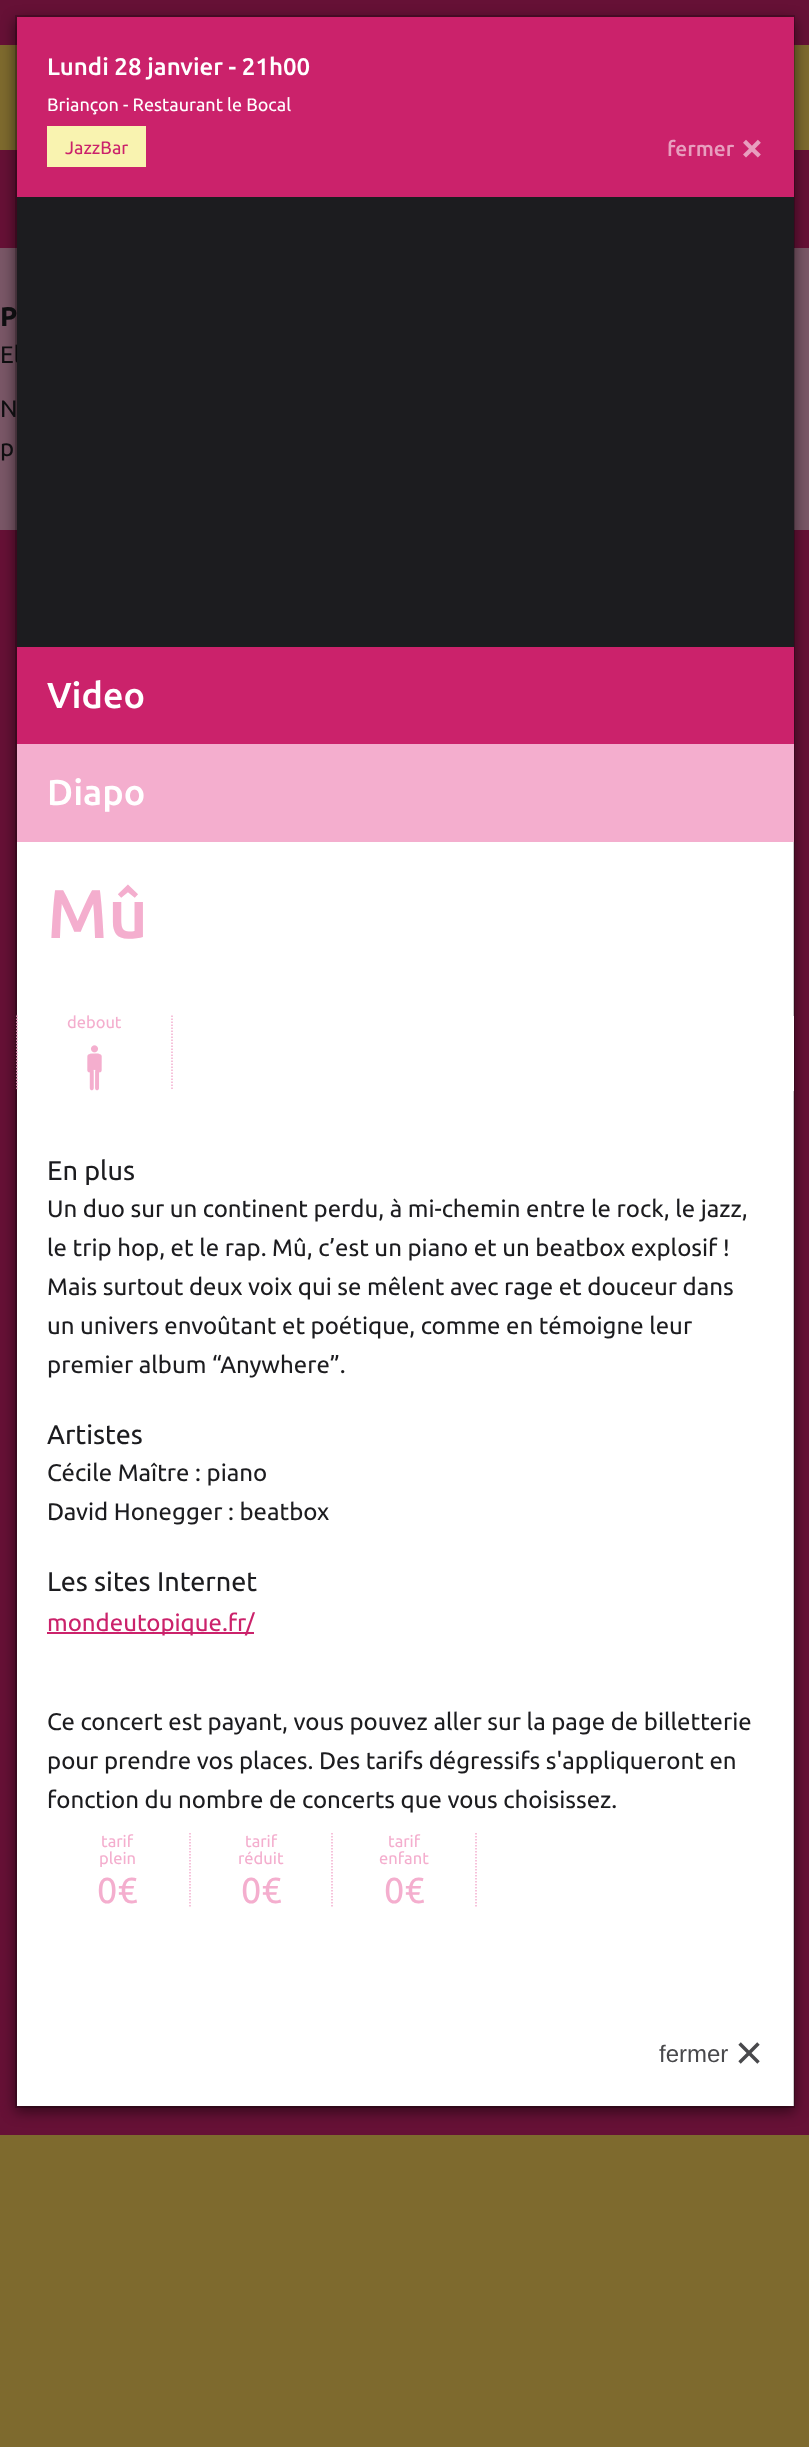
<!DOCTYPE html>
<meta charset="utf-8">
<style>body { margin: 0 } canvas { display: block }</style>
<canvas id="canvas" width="809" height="2447"></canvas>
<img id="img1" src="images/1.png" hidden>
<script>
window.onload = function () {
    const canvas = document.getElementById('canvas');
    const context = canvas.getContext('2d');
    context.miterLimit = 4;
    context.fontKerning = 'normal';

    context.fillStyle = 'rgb(126, 106, 46)';
    context.fillRect(0, 0, 809, 2447);
    context.fillStyle = 'rgb(102, 17, 54)';
    context.fillRect(0, 0, 809, 45);
    context.fillRect(0, 150, 809, 98);
    context.fillStyle = 'rgb(122, 87, 103)';
    context.fillRect(0, 248, 809, 282);
    context.fillStyle = 'rgb(102, 17, 54)';
    context.fillRect(0, 530, 809, 1605);
    context.fillStyle = 'rgba(0, 0, 0, 0.5)';
    context.filter = 'blur(7px)';
    context.beginPath();
    context.rect(15, 20, 780, 2092);
    context.fill();
    context.filter = 'none';
    context.fillStyle = 'rgb(255, 255, 255)';
    context.fillRect(17, 842, 777, 1264);
    context.font = 'bold 27px Ubuntu';
    context.fillStyle = 'rgb(14, 14, 16)';
    context.fillText('P', 0, 326);
    context.font = '24px Ubuntu';
    context.fillText('El', 0, 363);
    context.fillText('N', 0, 417);
    context.fillText('p', 0, 456);
    context.strokeStyle = 'rgba(0, 0, 0, 0.2)';
    context.lineWidth = 2;
    context.strokeRect(16, 16, 778, 2091);
    context.fillStyle = 'rgb(203, 34, 107)';
    context.fillRect(17, 17, 777, 180);
    context.font = '500 24px Ubuntu';
    context.fillStyle = 'rgb(255, 255, 255)';
    context.fillText('Lundi 28 janvier - 21h00', 47, 75);
    context.font = '18px Ubuntu';
    context.fillText('Briançon - Restaurant le Bocal', 47, 111);
    context.fillStyle = 'rgb(249, 243, 176)';
    context.fillRect(47, 126, 99, 41);
    context.fillStyle = 'rgb(203, 34, 107)';
    context.fillText('JazzBar', 65, 154);
    context.font = '500 21px Ubuntu';
    context.fillStyle = 'rgb(232, 158, 190)';
    context.fillText('fermer', 667, 156);
    context.font = '500 42px Ubuntu';
    context.fillText('×', 740, 161);
    context.fillStyle = 'rgb(28, 28, 31)';
    context.fillRect(17, 197, 777, 450);
    context.fillStyle = 'rgb(203, 34, 107)';
    context.fillRect(17, 647, 777, 97);
    context.font = '500 36px Ubuntu';
    context.fillStyle = 'rgb(255, 255, 255)';
    context.fillText('Video', 47, 708);
    context.fillStyle = 'rgb(244, 174, 206)';
    context.fillRect(17, 744, 777, 98);
    context.fillStyle = 'rgb(255, 255, 255)';
    context.fillText('Diapo', 47, 805);
    context.font = '500 69px Ubuntu';
    context.fillStyle = 'rgb(244, 174, 206)';
    context.fillText('Mû', 47, 938);
    context.fillStyle = 'rgb(255, 255, 255)';
    context.fillRect(793, 1016, 1, 75);
    context.beginPath();
    context.moveTo(172, 1015.5);
    context.lineTo(172, 1090.5);
    context.strokeStyle = 'rgb(244, 174, 206)';
    context.lineWidth = 1.5;
    context.setLineDash([1.5, 1.5]);
    context.stroke();
    context.beginPath();
    context.moveTo(17, 1015.5);
    context.lineTo(17, 1090.5);
    context.stroke();
    context.font = '16.5px Ubuntu';
    context.fillStyle = 'rgb(244, 174, 206)';
    context.fillText('debout', 67, 1028);
    context.drawImage(document.getElementById('img1'), 87, 1045, 15, 46);
    context.font = '27px Ubuntu';
    context.fillStyle = 'rgb(28, 28, 31)';
    context.fillText('En plus', 47, 1180);
    context.font = '24px Ubuntu';
    context.fillText('Un duo sur un continent perdu, à mi-chemin entre le rock, le jazz,', 47, 1217);
    context.fillText('le trip hop, et le rap. Mû, c’est un piano et un beatbox explosif !', 47, 1256);
    context.fillText('Mais surtout deux voix qui se mêlent avec rage et douceur dans', 47, 1295);
    context.fillText('un univers envoûtant et poétique, comme en témoigne leur', 47, 1334);
    context.fillText('premier album “Anywhere”.', 47, 1373);
    context.font = '27px Ubuntu';
    context.fillText('Artistes', 47, 1444);
    context.font = '24px Ubuntu';
    context.fillText('Cécile Maître : piano', 47, 1481);
    context.fillText('David Honegger : beatbox', 47, 1520);
    context.font = '27px Ubuntu';
    context.fillText('Les sites Internet', 47, 1591);
    context.fillStyle = 'rgb(203, 34, 107)';
    context.fillRect(47, 1632, 207, 2);
    context.font = '24px Ubuntu';
    context.fillText('mondeutopique.fr/', 47, 1631);
    context.fillStyle = 'rgb(28, 28, 31)';
    context.fillText('Ce concert est payant, vous pouvez aller sur la page de billetterie', 47, 1730);
    context.fillText('pour prendre vos places. Des tarifs dégressifs s\'appliqueront en', 47, 1769);
    context.fillText('fonction du nombre de concerts que vous choisissez.', 47, 1808);
    context.beginPath();
    context.moveTo(190, 1833);
    context.lineTo(190, 1908);
    context.stroke();
    context.font = '16.5px Ubuntu';
    context.fillStyle = 'rgb(244, 174, 206)';
    context.fillText('tarif', 101, 1847);
    context.fillText('plein', 99, 1864);
    context.font = '36px Ubuntu';
    context.fillText('0€', 97, 1903);
    context.beginPath();
    context.moveTo(332, 1833);
    context.lineTo(332, 1908);
    context.stroke();
    context.font = '16.5px Ubuntu';
    context.fillText('tarif', 245, 1847);
    context.fillText('réduit', 238, 1864);
    context.font = '36px Ubuntu';
    context.fillText('0€', 241, 1903);
    context.beginPath();
    context.moveTo(476, 1833);
    context.lineTo(476, 1908);
    context.stroke();
    context.font = '16.5px Ubuntu';
    context.fillText('tarif', 388, 1847);
    context.fillText('enfant', 379, 1864);
    context.font = '36px Ubuntu';
    context.fillText('0€', 384, 1903);
    context.font = '24px Liberation Sans';
    context.fillStyle = 'rgb(73, 73, 76)';
    context.fillText('fermer', 659, 2062);
    context.font = '48px Liberation Sans';
    context.fillText('×', 735, 2069);
};
</script>
